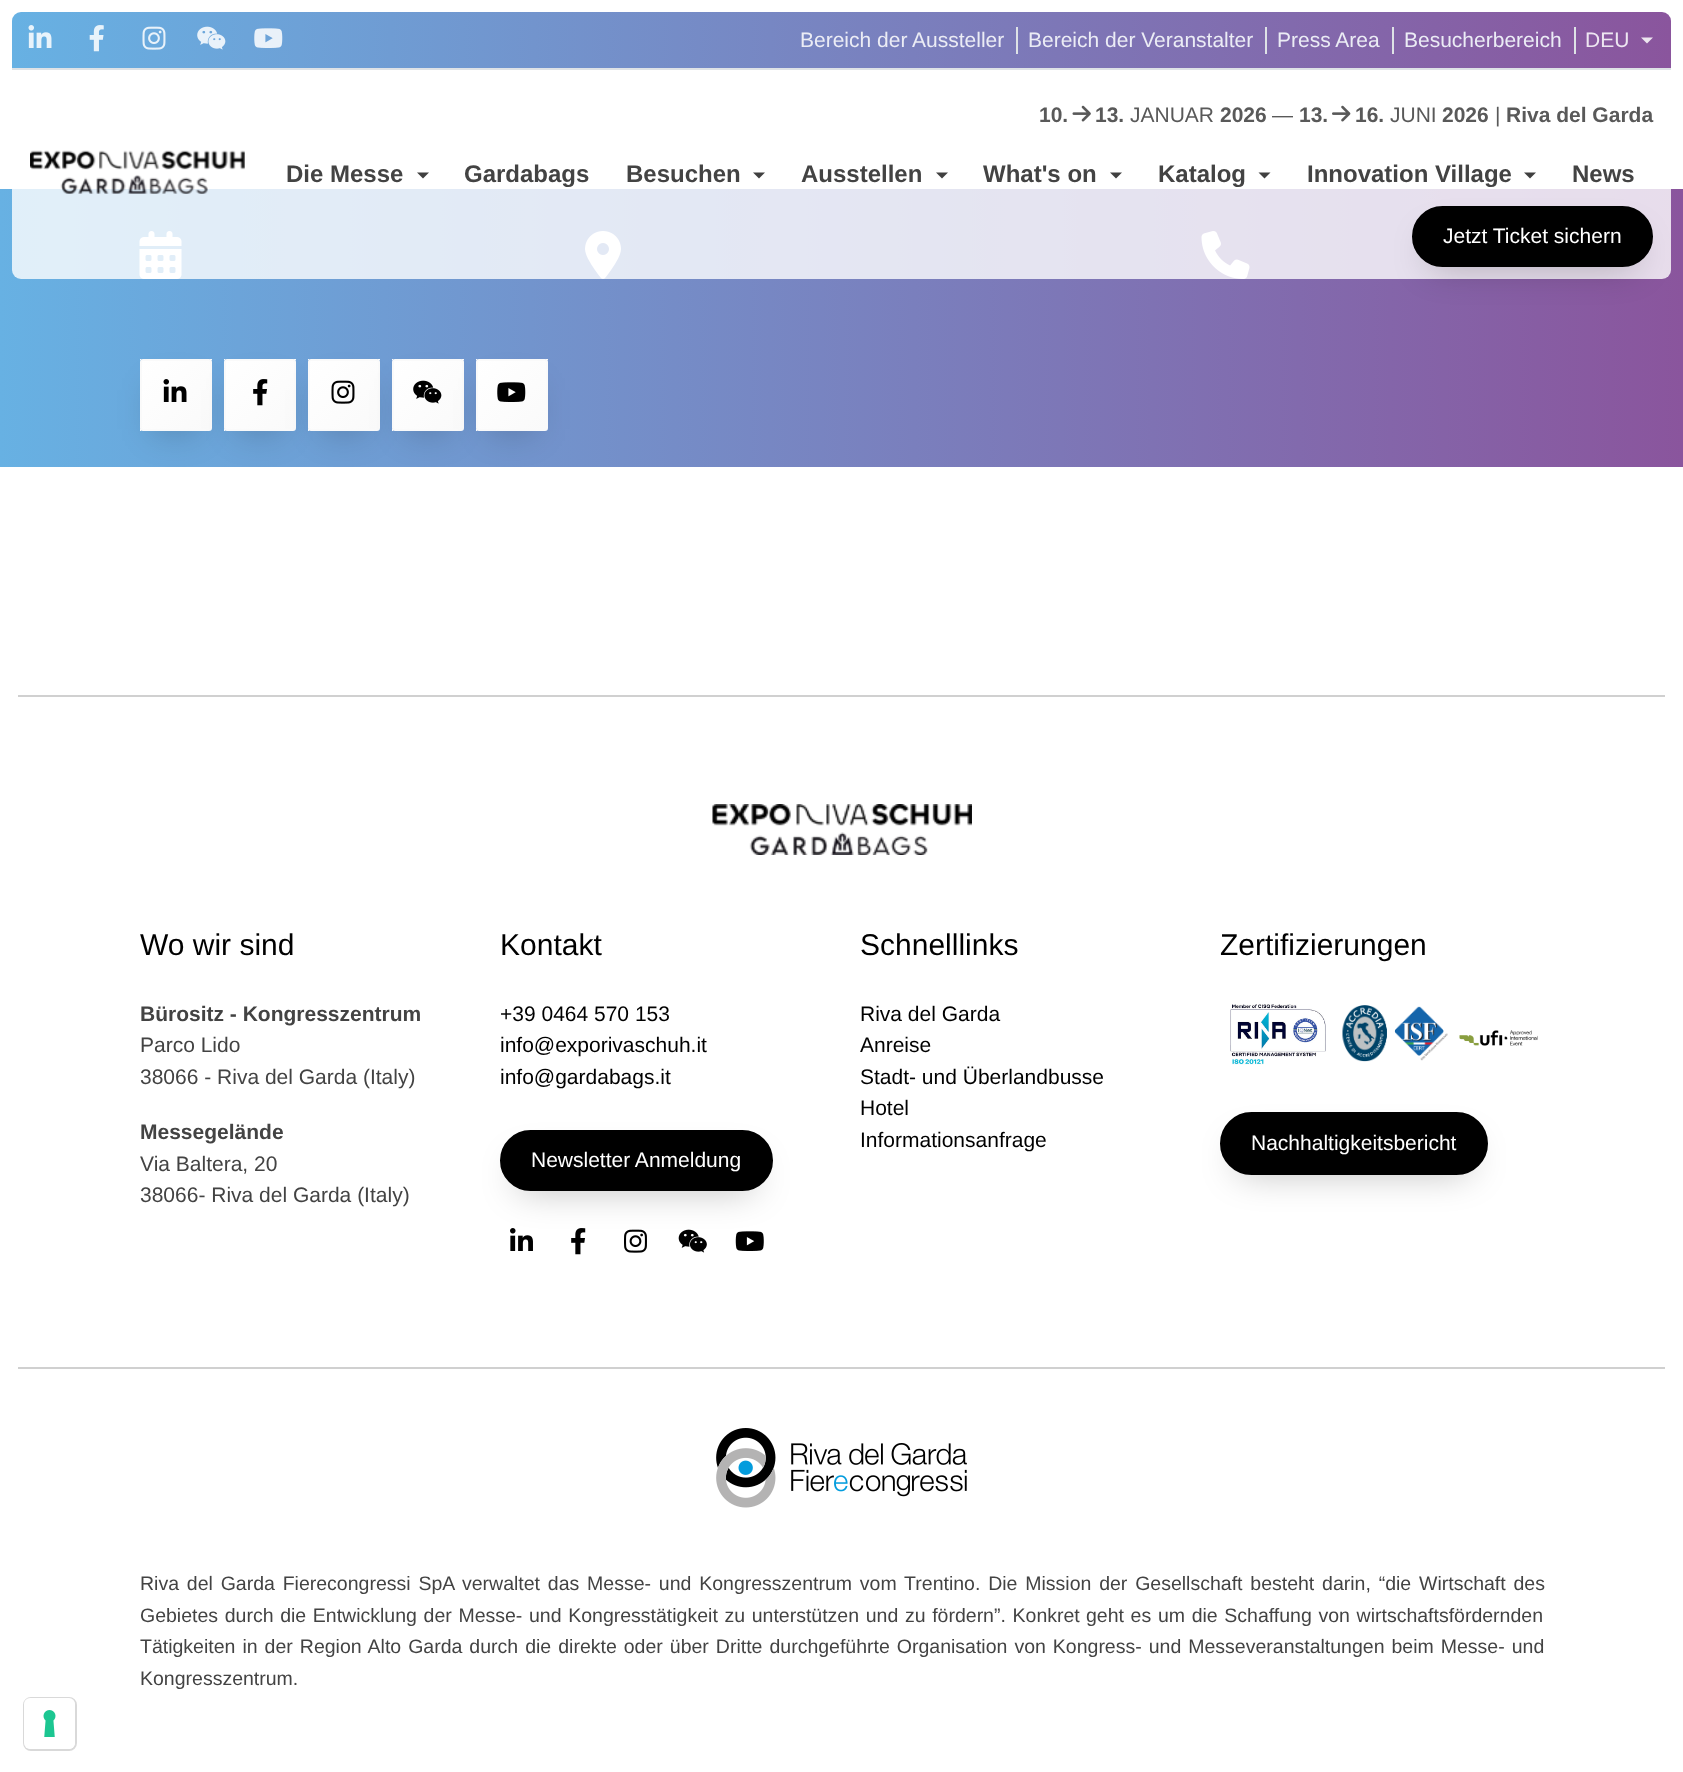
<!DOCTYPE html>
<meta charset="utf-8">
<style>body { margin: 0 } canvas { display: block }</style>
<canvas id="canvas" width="1683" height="1772"></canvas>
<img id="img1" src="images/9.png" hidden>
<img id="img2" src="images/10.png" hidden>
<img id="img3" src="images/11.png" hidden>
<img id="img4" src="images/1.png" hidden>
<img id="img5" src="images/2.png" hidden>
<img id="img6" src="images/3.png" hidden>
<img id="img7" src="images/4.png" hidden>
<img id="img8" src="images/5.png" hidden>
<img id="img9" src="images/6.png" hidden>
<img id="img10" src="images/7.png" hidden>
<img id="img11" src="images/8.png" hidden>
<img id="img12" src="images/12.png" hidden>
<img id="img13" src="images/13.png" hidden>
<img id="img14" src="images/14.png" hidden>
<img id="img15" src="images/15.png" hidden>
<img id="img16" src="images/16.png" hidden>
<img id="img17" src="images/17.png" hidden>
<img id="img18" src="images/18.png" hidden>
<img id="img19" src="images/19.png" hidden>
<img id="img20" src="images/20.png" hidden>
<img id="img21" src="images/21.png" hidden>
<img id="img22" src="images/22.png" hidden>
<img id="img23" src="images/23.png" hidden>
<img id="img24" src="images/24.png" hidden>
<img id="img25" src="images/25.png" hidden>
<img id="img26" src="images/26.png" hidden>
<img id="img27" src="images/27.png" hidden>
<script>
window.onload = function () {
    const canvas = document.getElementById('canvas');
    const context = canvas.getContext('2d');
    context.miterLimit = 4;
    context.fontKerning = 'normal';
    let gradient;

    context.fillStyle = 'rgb(255, 255, 255)';
    context.fillRect(0, 0, 1683, 1772);
    gradient = context.createLinearGradient(0, 328, 1683, 328);
    gradient.addColorStop(0, 'rgb(103, 177, 227)');
    gradient.addColorStop(1, 'rgb(138, 85, 157)');
    context.fillStyle = gradient;
    context.fillRect(0, 189, 1683, 278);
    context.drawImage(document.getElementById('img1'), 139, 231, 43, 48);
    context.drawImage(document.getElementById('img2'), 585, 231, 36, 48);
    context.drawImage(document.getElementById('img3'), 1201, 231, 49, 48);
    context.fillStyle = 'rgba(255, 255, 255, 0.8)';
    context.beginPath();
    context.roundRect(12, 12, 1659, 267, 9);
    context.fill();
    context.drawImage(document.getElementById('img4'), 30, 150, 215, 44);
    gradient = context.createLinearGradient(12, 40, 1671, 40);
    gradient.addColorStop(0, 'rgb(103, 177, 227)');
    gradient.addColorStop(1, 'rgb(138, 85, 157)');
    context.fillStyle = gradient;
    context.beginPath();
    context.roundRect(12, 12, 1659, 57, [9, 9, 0, 0]);
    context.fill();
    context.fillStyle = 'rgb(222, 226, 230)';
    context.fillRect(12, 68, 1659, 2);
    context.drawImage(document.getElementById('img5'), 28, 25, 24, 23);
    context.drawImage(document.getElementById('img6'), 89, 25, 15, 27);
    context.drawImage(document.getElementById('img7'), 142, 26, 24, 24);
    context.drawImage(document.getElementById('img8'), 197, 26, 29, 24);
    context.drawImage(document.getElementById('img9'), 254, 28, 29, 20);
    context.fillRect(1016, 27, 2, 27);
    context.fillRect(1265, 27, 2, 27);
    context.fillRect(1392, 27, 2, 27);
    context.fillRect(1574, 27, 2, 27);
    context.fillStyle = 'rgb(237, 230, 240)';
    context.beginPath();
    context.moveTo(1641, 37.5);
    context.lineTo(1653, 37.5);
    context.lineTo(1647, 43.5);
    context.closePath();
    context.fill();
    context.drawImage(document.getElementById('img10'), 1072, 105, 19, 17);
    context.drawImage(document.getElementById('img11'), 1332, 105, 19, 17);
    context.fillStyle = 'rgb(64, 64, 64)';
    context.beginPath();
    context.moveTo(417, 172.5);
    context.lineTo(429, 172.5);
    context.lineTo(423, 178.5);
    context.closePath();
    context.fill();
    context.beginPath();
    context.moveTo(753, 172.5);
    context.lineTo(765, 172.5);
    context.lineTo(759, 178.5);
    context.closePath();
    context.fill();
    context.beginPath();
    context.moveTo(936, 172.5);
    context.lineTo(948, 172.5);
    context.lineTo(942, 178.5);
    context.closePath();
    context.fill();
    context.beginPath();
    context.moveTo(1110, 172.5);
    context.lineTo(1122, 172.5);
    context.lineTo(1116, 178.5);
    context.closePath();
    context.fill();
    context.beginPath();
    context.moveTo(1258.5, 172.5);
    context.lineTo(1270.5, 172.5);
    context.lineTo(1264.5, 178.5);
    context.closePath();
    context.fill();
    context.beginPath();
    context.moveTo(1524, 172.5);
    context.lineTo(1536, 172.5);
    context.lineTo(1530, 178.5);
    context.closePath();
    context.fill();
    context.fillStyle = 'rgba(0, 0, 0, 0.27)';
    context.filter = 'blur(18px)';
    context.beginPath();
    context.roundRect(1428, 237, 209, 29, 14.5);
    context.fill();
    context.filter = 'none';
    context.fillStyle = 'rgb(0, 0, 0)';
    context.beginPath();
    context.roundRect(1413, 207, 239, 59, 29.5);
    context.fill();
    context.strokeStyle = 'rgb(0, 0, 0)';
    context.lineWidth = 2;
    context.stroke();
    context.fillStyle = 'rgba(0, 0, 0, 0.27)';
    context.filter = 'blur(18px)';
    context.beginPath();
    context.rect(156, 390, 39, 39);
    context.fill();
    context.filter = 'none';
    gradient = context.createLinearGradient(72, 291, 141, 360);
    gradient.addColorStop(0, 'rgb(255, 255, 255)');
    gradient.addColorStop(1, 'rgb(250, 250, 250)');
    context.fillStyle = gradient;
    context.fillRect(140, 359, 1, 1);
    gradient = context.createLinearGradient(210, 291, 279, 360);
    gradient.addColorStop(0, 'rgb(255, 255, 255)');
    gradient.addColorStop(1, 'rgb(250, 250, 250)');
    context.fillStyle = gradient;
    context.fillRect(210, 359, 2, 1);
    gradient = context.createLinearGradient(141, 360, 210, 429);
    gradient.addColorStop(0, 'rgb(255, 255, 255)');
    gradient.addColorStop(1, 'rgb(250, 250, 250)');
    context.fillStyle = gradient;
    context.fillRect(142, 361, 68, 68);
    gradient = context.createLinearGradient(72, 429, 141, 498);
    gradient.addColorStop(0, 'rgb(255, 255, 255)');
    gradient.addColorStop(1, 'rgb(250, 250, 250)');
    context.fillStyle = gradient;
    context.fillRect(140, 429, 1, 2);
    context.beginPath();
    context.roundRect(141, 360, 70, 70, 2);
    context.strokeStyle = 'rgb(250, 250, 250)';
    context.stroke();
    context.drawImage(document.getElementById('img12'), 163, 379, 24, 23);
    context.fillStyle = 'rgba(0, 0, 0, 0.27)';
    context.filter = 'blur(18px)';
    context.beginPath();
    context.rect(240, 390, 39, 39);
    context.fill();
    context.filter = 'none';
    gradient = context.createLinearGradient(156, 291, 225, 360);
    gradient.addColorStop(0, 'rgb(255, 255, 255)');
    gradient.addColorStop(1, 'rgb(250, 250, 250)');
    context.fillStyle = gradient;
    context.fillRect(224, 359, 1, 1);
    gradient = context.createLinearGradient(294, 291, 363, 360);
    gradient.addColorStop(0, 'rgb(255, 255, 255)');
    gradient.addColorStop(1, 'rgb(250, 250, 250)');
    context.fillStyle = gradient;
    context.fillRect(294, 359, 2, 1);
    gradient = context.createLinearGradient(225, 360, 294, 429);
    gradient.addColorStop(0, 'rgb(255, 255, 255)');
    gradient.addColorStop(1, 'rgb(250, 250, 250)');
    context.fillStyle = gradient;
    context.fillRect(226, 361, 68, 68);
    gradient = context.createLinearGradient(156, 429, 225, 498);
    gradient.addColorStop(0, 'rgb(255, 255, 255)');
    gradient.addColorStop(1, 'rgb(250, 250, 250)');
    context.fillStyle = gradient;
    context.fillRect(224, 429, 1, 2);
    context.beginPath();
    context.roundRect(225, 360, 70, 70, 2);
    context.stroke();
    context.drawImage(document.getElementById('img13'), 253, 379, 15, 27);
    context.fillStyle = 'rgba(0, 0, 0, 0.27)';
    context.filter = 'blur(18px)';
    context.beginPath();
    context.rect(324, 390, 39, 39);
    context.fill();
    context.filter = 'none';
    gradient = context.createLinearGradient(240, 291, 309, 360);
    gradient.addColorStop(0, 'rgb(255, 255, 255)');
    gradient.addColorStop(1, 'rgb(250, 250, 250)');
    context.fillStyle = gradient;
    context.fillRect(308, 359, 1, 1);
    gradient = context.createLinearGradient(378, 291, 447, 360);
    gradient.addColorStop(0, 'rgb(255, 255, 255)');
    gradient.addColorStop(1, 'rgb(250, 250, 250)');
    context.fillStyle = gradient;
    context.fillRect(378, 359, 2, 1);
    gradient = context.createLinearGradient(309, 360, 378, 429);
    gradient.addColorStop(0, 'rgb(255, 255, 255)');
    gradient.addColorStop(1, 'rgb(250, 250, 250)');
    context.fillStyle = gradient;
    context.fillRect(310, 361, 68, 68);
    gradient = context.createLinearGradient(240, 429, 309, 498);
    gradient.addColorStop(0, 'rgb(255, 255, 255)');
    gradient.addColorStop(1, 'rgb(250, 250, 250)');
    context.fillStyle = gradient;
    context.fillRect(308, 429, 1, 2);
    context.beginPath();
    context.roundRect(309, 360, 70, 70, 2);
    context.stroke();
    context.drawImage(document.getElementById('img14'), 331, 380, 24, 24);
    context.fillStyle = 'rgba(0, 0, 0, 0.27)';
    context.filter = 'blur(18px)';
    context.beginPath();
    context.rect(408, 390, 39, 39);
    context.fill();
    context.filter = 'none';
    gradient = context.createLinearGradient(324, 291, 393, 360);
    gradient.addColorStop(0, 'rgb(255, 255, 255)');
    gradient.addColorStop(1, 'rgb(250, 250, 250)');
    context.fillStyle = gradient;
    context.fillRect(392, 359, 1, 1);
    gradient = context.createLinearGradient(462, 291, 531, 360);
    gradient.addColorStop(0, 'rgb(255, 255, 255)');
    gradient.addColorStop(1, 'rgb(250, 250, 250)');
    context.fillStyle = gradient;
    context.fillRect(462, 359, 2, 1);
    gradient = context.createLinearGradient(393, 360, 462, 429);
    gradient.addColorStop(0, 'rgb(255, 255, 255)');
    gradient.addColorStop(1, 'rgb(250, 250, 250)');
    context.fillStyle = gradient;
    context.fillRect(394, 361, 68, 68);
    gradient = context.createLinearGradient(324, 429, 393, 498);
    gradient.addColorStop(0, 'rgb(255, 255, 255)');
    gradient.addColorStop(1, 'rgb(250, 250, 250)');
    context.fillStyle = gradient;
    context.fillRect(392, 429, 1, 2);
    context.beginPath();
    context.roundRect(393, 360, 70, 70, 2);
    context.stroke();
    context.drawImage(document.getElementById('img15'), 413, 380, 29, 24);
    context.fillStyle = 'rgba(0, 0, 0, 0.27)';
    context.filter = 'blur(18px)';
    context.beginPath();
    context.rect(492, 390, 39, 39);
    context.fill();
    context.filter = 'none';
    gradient = context.createLinearGradient(408, 291, 477, 360);
    gradient.addColorStop(0, 'rgb(255, 255, 255)');
    gradient.addColorStop(1, 'rgb(250, 250, 250)');
    context.fillStyle = gradient;
    context.fillRect(476, 359, 1, 1);
    gradient = context.createLinearGradient(546, 291, 615, 360);
    gradient.addColorStop(0, 'rgb(255, 255, 255)');
    gradient.addColorStop(1, 'rgb(250, 250, 250)');
    context.fillStyle = gradient;
    context.fillRect(546, 359, 2, 1);
    gradient = context.createLinearGradient(477, 360, 546, 429);
    gradient.addColorStop(0, 'rgb(255, 255, 255)');
    gradient.addColorStop(1, 'rgb(250, 250, 250)');
    context.fillStyle = gradient;
    context.fillRect(478, 361, 68, 68);
    gradient = context.createLinearGradient(408, 429, 477, 498);
    gradient.addColorStop(0, 'rgb(255, 255, 255)');
    gradient.addColorStop(1, 'rgb(250, 250, 250)');
    context.fillStyle = gradient;
    context.fillRect(476, 429, 1, 2);
    context.beginPath();
    context.roundRect(477, 360, 70, 70, 2);
    context.stroke();
    context.drawImage(document.getElementById('img16'), 497, 382, 29, 20);
    context.fillStyle = 'rgb(208, 208, 208)';
    context.fillRect(18, 695, 1647, 2);
    context.drawImage(document.getElementById('img17'), 712, 804, 260, 51);
    context.fillStyle = 'rgba(0, 0, 0, 0.27)';
    context.filter = 'blur(18px)';
    context.beginPath();
    context.roundRect(516, 1161, 240, 29, 14.5);
    context.fill();
    context.filter = 'none';
    context.fillStyle = 'rgb(0, 0, 0)';
    context.beginPath();
    context.roundRect(501, 1131, 271, 59, 29.5);
    context.fill();
    context.strokeStyle = 'rgb(0, 0, 0)';
    context.stroke();
    context.drawImage(document.getElementById('img18'), 510, 1228, 23, 23);
    context.drawImage(document.getElementById('img19'), 571, 1228, 15, 27);
    context.drawImage(document.getElementById('img20'), 624, 1229, 23, 24);
    context.drawImage(document.getElementById('img21'), 678, 1229, 29, 24);
    context.drawImage(document.getElementById('img22'), 735, 1231, 29, 20);
    context.drawImage(document.getElementById('img23'), 1230, 1004, 96, 61);
    context.drawImage(document.getElementById('img24'), 1342, 1005, 106, 57);
    context.drawImage(document.getElementById('img25'), 1459, 1030, 79, 16);
    context.fillStyle = 'rgba(0, 0, 0, 0.27)';
    context.filter = 'blur(18px)';
    context.beginPath();
    context.roundRect(1236, 1143, 236, 30, 15);
    context.fill();
    context.filter = 'none';
    context.fillStyle = 'rgb(0, 0, 0)';
    context.beginPath();
    context.roundRect(1221, 1113, 266, 61, 30.5);
    context.fill();
    context.stroke();
    context.fillStyle = 'rgb(208, 208, 208)';
    context.fillRect(18, 1367, 1647, 2);
    context.drawImage(document.getElementById('img26'), 716, 1428, 251, 80);
    context.beginPath();
    context.roundRect(24, 1698, 52, 52, 7);
    context.strokeStyle = 'rgb(217, 217, 217)';
    context.stroke();
    context.fillStyle = 'rgb(255, 255, 255)';
    context.beginPath();
    context.roundRect(24, 1698, 51, 51, 6);
    context.fill();
    context.drawImage(document.getElementById('img27'), 43, 1710, 13, 27);
    context.font = '21px Liberation Sans';
    context.fillStyle = 'rgb(235, 236, 245)';
    context.fillText('Bereich der Aussteller', 800, 47);
    context.fillText('Bereich der Veranstalter', 1028, 47);
    context.fillText('Press Area', 1277, 47);
    context.fillText('Besucherbereich', 1404, 47);
    context.fillStyle = 'rgb(237, 230, 241)';
    context.fillText('DEU', 1585, 47);
    context.font = 'bold 21px Liberation Sans';
    context.fillStyle = 'rgb(89, 89, 89)';
    context.fillText('10.', 1039, 122);
    context.fillText('13.', 1095, 122);
    context.font = '21px Liberation Sans';
    context.fillText('JANUAR', 1130, 122);
    context.font = 'bold 21px Liberation Sans';
    context.fillText('2026', 1220, 122);
    context.font = '21px Liberation Sans';
    context.fillText('—', 1272, 122);
    context.font = 'bold 21px Liberation Sans';
    context.fillText('13.', 1299, 122);
    context.fillText('16.', 1355, 122);
    context.font = '21px Liberation Sans';
    context.fillText('JUNI', 1390, 122);
    context.font = 'bold 21px Liberation Sans';
    context.fillText('2026', 1442, 122);
    context.font = '21px Liberation Sans';
    context.fillText('|', 1495, 122);
    context.font = 'bold 21px Liberation Sans';
    context.fillText('Riva del Garda', 1506, 122);
    context.font = 'bold 24px Liberation Sans';
    context.fillStyle = 'rgb(67, 67, 67)';
    context.fillText('Die Messe', 286, 182);
    context.fillText('Gardabags', 464, 182);
    context.fillText('Besuchen', 626, 182);
    context.fillText('Ausstellen', 801, 182);
    context.fillText('What\'s on', 983, 182);
    context.fillText('Katalog', 1158, 182);
    context.fillText('Innovation Village', 1307, 182);
    context.fillText('News', 1572, 182);
    context.font = '21px Liberation Sans';
    context.fillStyle = 'rgb(255, 255, 255)';
    context.fillText('Jetzt Ticket sichern', 1443, 243);
    context.font = '30px Liberation Sans';
    context.fillStyle = 'rgb(0, 0, 0)';
    context.fillText('Wo wir sind', 140, 955);
    context.font = 'bold 21px Liberation Sans';
    context.fillStyle = 'rgb(67, 67, 67)';
    context.fillText('Bürositz - Kongresszentrum', 140, 1021);
    context.font = '21px Liberation Sans';
    context.fillText('Parco Lido', 140, 1052);
    context.fillText('38066 - Riva del Garda (Italy)', 140, 1084);
    context.font = 'bold 21px Liberation Sans';
    context.fillText('Messegelände', 140, 1139);
    context.font = '21px Liberation Sans';
    context.fillText('Via Baltera, 20', 140, 1171);
    context.fillText('38066- Riva del Garda (Italy)', 140, 1202);
    context.font = '30px Liberation Sans';
    context.fillStyle = 'rgb(0, 0, 0)';
    context.fillText('Kontakt', 500, 955);
    context.font = '21px Liberation Sans';
    context.fillText('+39 0464 570 153', 500, 1021);
    context.fillText('info@exporivaschuh.it', 500, 1052);
    context.fillText('info@gardabags.it', 500, 1084);
    context.fillStyle = 'rgb(255, 255, 255)';
    context.fillText('Newsletter Anmeldung', 531, 1167);
    context.font = '30px Liberation Sans';
    context.fillStyle = 'rgb(0, 0, 0)';
    context.fillText('Schnelllinks', 860, 955);
    context.font = '21px Liberation Sans';
    context.fillText('Riva del Garda', 860, 1021);
    context.fillText('Anreise', 860, 1052);
    context.fillText('Stadt- und Überlandbusse', 860, 1084);
    context.fillText('Hotel', 860, 1115);
    context.fillText('Informationsanfrage', 860, 1147);
    context.font = '30px Liberation Sans';
    context.fillText('Zertifizierungen', 1220, 955);
    context.font = '21px Liberation Sans';
    context.fillStyle = 'rgb(255, 255, 255)';
    context.fillText('Nachhaltigkeitsbericht', 1251, 1150);
    context.wordSpacing = '2.4px';
    context.font = '19.5px Liberation Sans';
    context.fillStyle = 'rgb(67, 67, 67)';
    context.fillText('Riva del Garda Fierecongressi SpA verwaltet das Messe- und Kongresszentrum vom Trentino. Die Mission der Gesellschaft besteht darin, “die Wirtschaft des', 140, 1590);
    context.wordSpacing = '1.25px';
    context.fillText('Gebietes durch die Entwicklung der Messe- und Kongresstätigkeit zu unterstützen und zu fördern”. Konkret', 140, 1622);
    context.fillText('geht es um die Schaffung von wirtschaftsfördernden', 1086, 1622);
    context.wordSpacing = '1.6px';
    context.fillText('Tätigkeiten in der Region Alto Garda durch die direkte oder über Dritte durchgeführte Organisation von Kongress- und Messeveranstaltungen beim Messe- und', 140, 1653);
    context.wordSpacing = '0px';
    context.fillText('Kongresszentrum.', 140, 1685);
};
</script>
